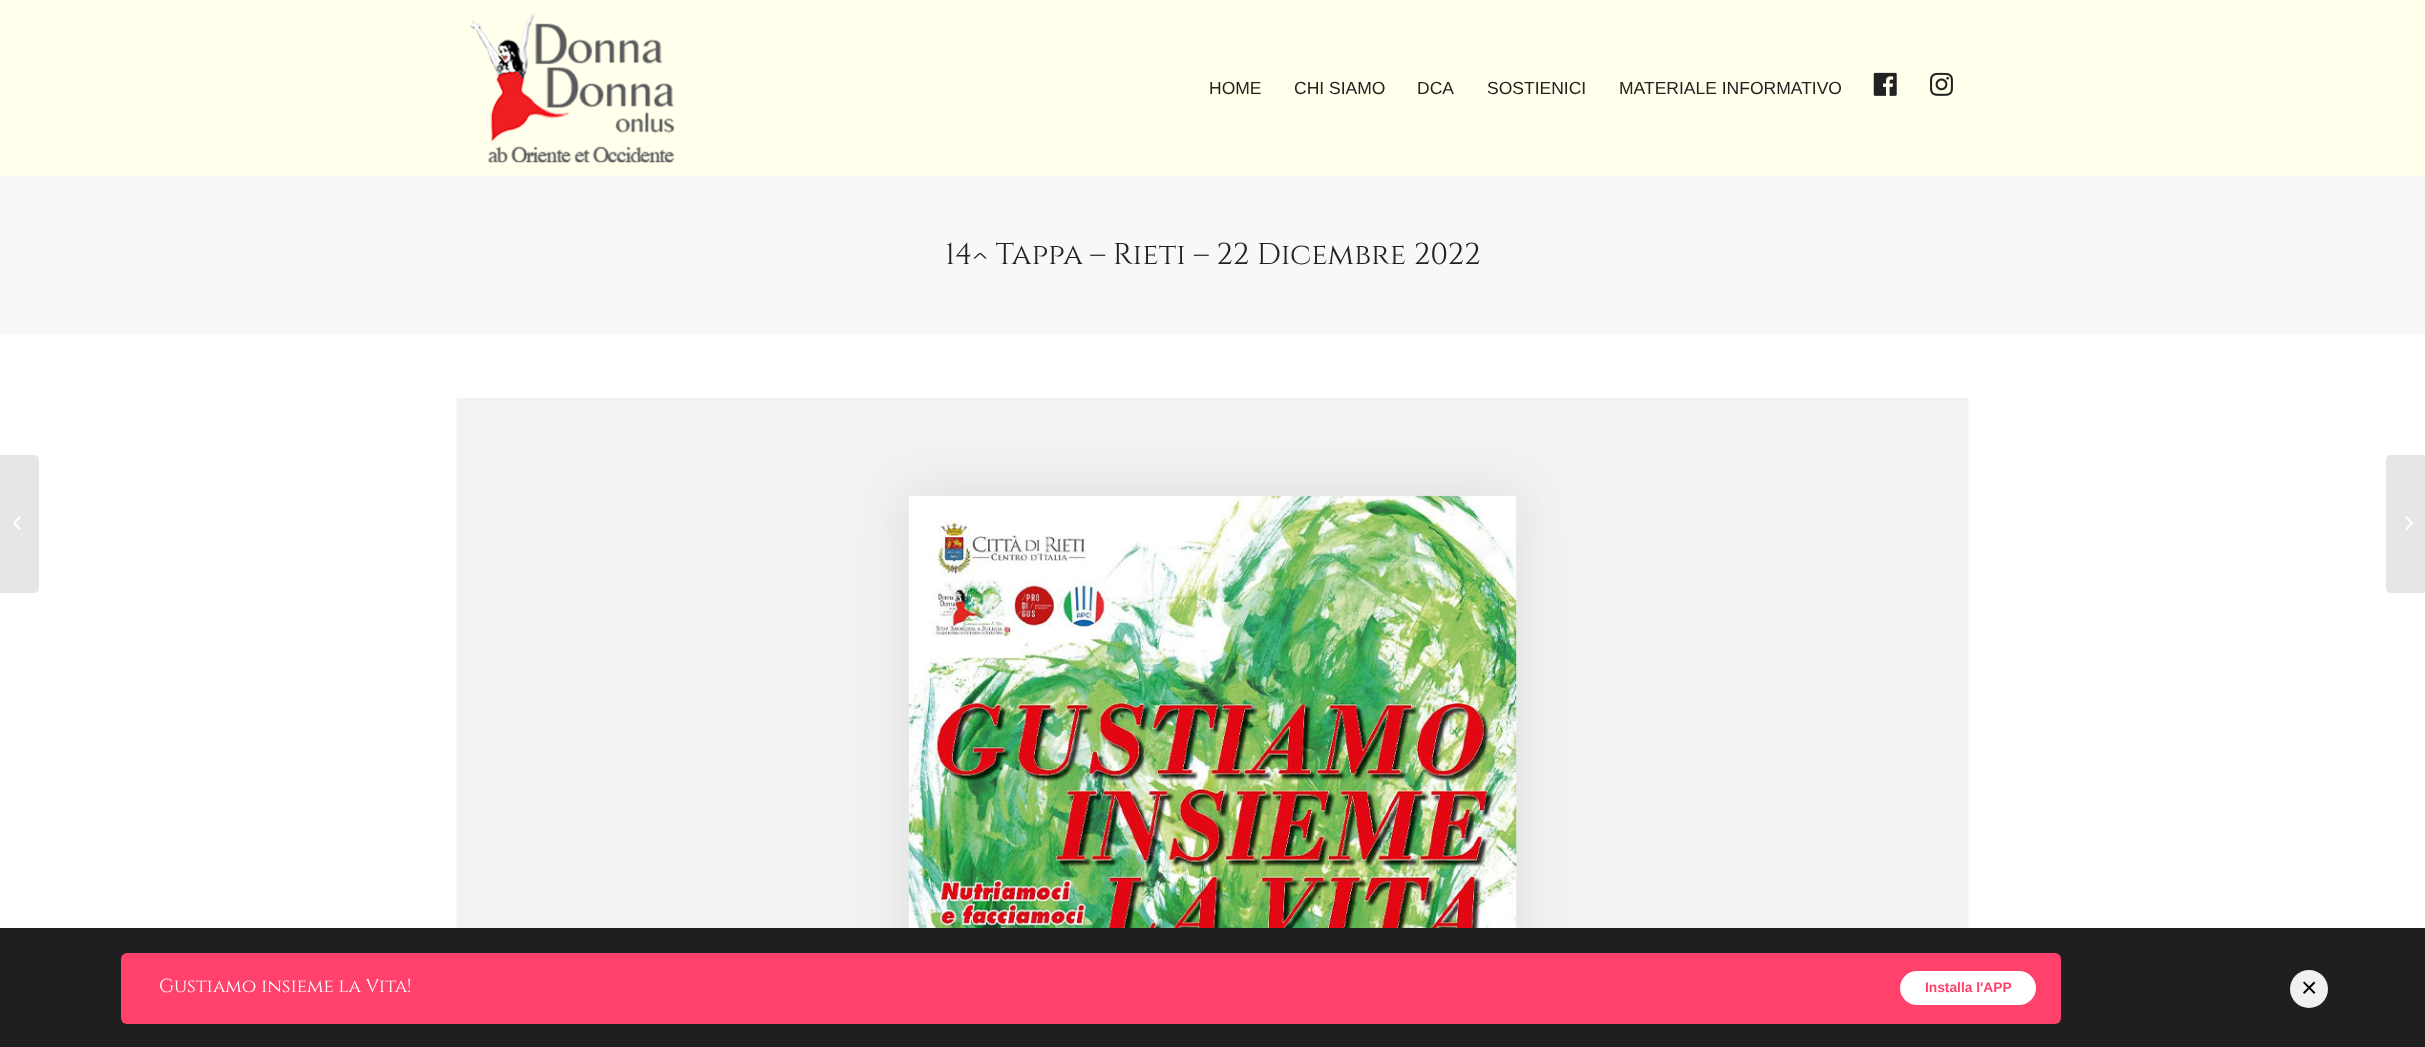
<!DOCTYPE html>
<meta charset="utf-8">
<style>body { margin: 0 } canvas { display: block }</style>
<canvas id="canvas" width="2425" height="1047"></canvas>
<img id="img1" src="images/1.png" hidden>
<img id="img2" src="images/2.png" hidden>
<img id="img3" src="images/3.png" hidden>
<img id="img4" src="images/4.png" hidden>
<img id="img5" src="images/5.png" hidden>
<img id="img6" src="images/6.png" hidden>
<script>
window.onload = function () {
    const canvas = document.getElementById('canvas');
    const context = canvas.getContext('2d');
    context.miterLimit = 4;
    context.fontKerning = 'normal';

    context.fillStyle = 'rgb(248, 248, 248)';
    context.fillRect(0, 0, 2425, 1047);
    context.fillStyle = 'rgb(255, 255, 235)';
    context.fillRect(0, 0, 2425, 176);
    context.drawImage(document.getElementById('img1'), 469, 13, 206, 150);
    context.drawImage(document.getElementById('img2'), 1873, 72, 24, 24);
    context.drawImage(document.getElementById('img3'), 1930, 72, 23, 24);
    context.fillStyle = 'rgb(255, 255, 255)';
    context.fillRect(0, 334, 2425, 594);
    context.drawImage(document.getElementById('img4'), 456, 398, 1513, 530);
    context.fillStyle = 'rgb(230, 230, 230)';
    context.beginPath();
    context.roundRect(0, 455, 39, 138, [0, 5, 5, 0]);
    context.fill();
    context.drawImage(document.getElementById('img5'), 13, 516, 8, 14);
    context.beginPath();
    context.roundRect(2386, 455, 39, 138, [5, 0, 0, 5]);
    context.fill();
    context.drawImage(document.getElementById('img6'), 2405, 516, 9, 14);
    context.fillStyle = 'rgb(31, 31, 31)';
    context.fillRect(0, 928, 2425, 119);
    context.fillStyle = 'rgb(255, 65, 108)';
    context.beginPath();
    context.roundRect(121, 953, 1940, 71, 6);
    context.fill();
    context.fillStyle = 'rgb(255, 255, 255)';
    context.beginPath();
    context.roundRect(1900, 971, 136, 34, 17);
    context.fill();
    context.fillStyle = 'rgb(241, 241, 241)';
    context.beginPath();
    context.arc(2309, 989, 19, 0, 2 * Math.PI);
    context.fill();
    context.font = '17.5px Liberation Sans';
    context.fillStyle = 'rgb(34, 34, 34)';
    context.fillText('HOME', 1209, 94);
    context.fillText('CHI SIAMO', 1294, 94);
    context.fillText('DCA', 1417, 94);
    context.fillText('SOSTIENICI', 1487, 94);
    context.fillText('MATERIALE INFORMATIVO', 1619, 94);
    context.font = '30px Cinzel';
    context.fillText('14^ Tappa – Rieti – 22 Dicembre 2022', 945, 264);
    context.font = '18.75px Cinzel';
    context.fillStyle = 'rgb(255, 255, 255)';
    context.fillText('Gustiamo insieme la Vita!', 159, 992);
    context.font = 'bold 13.75px Liberation Sans';
    context.fillStyle = 'rgb(255, 65, 106)';
    context.fillText('Installa l\'APP', 1925, 992);
    context.font = '28px Liberation Sans';
    context.fillStyle = 'rgb(0, 0, 0)';
    context.fillText('×', 2301, 997);
};
</script>
